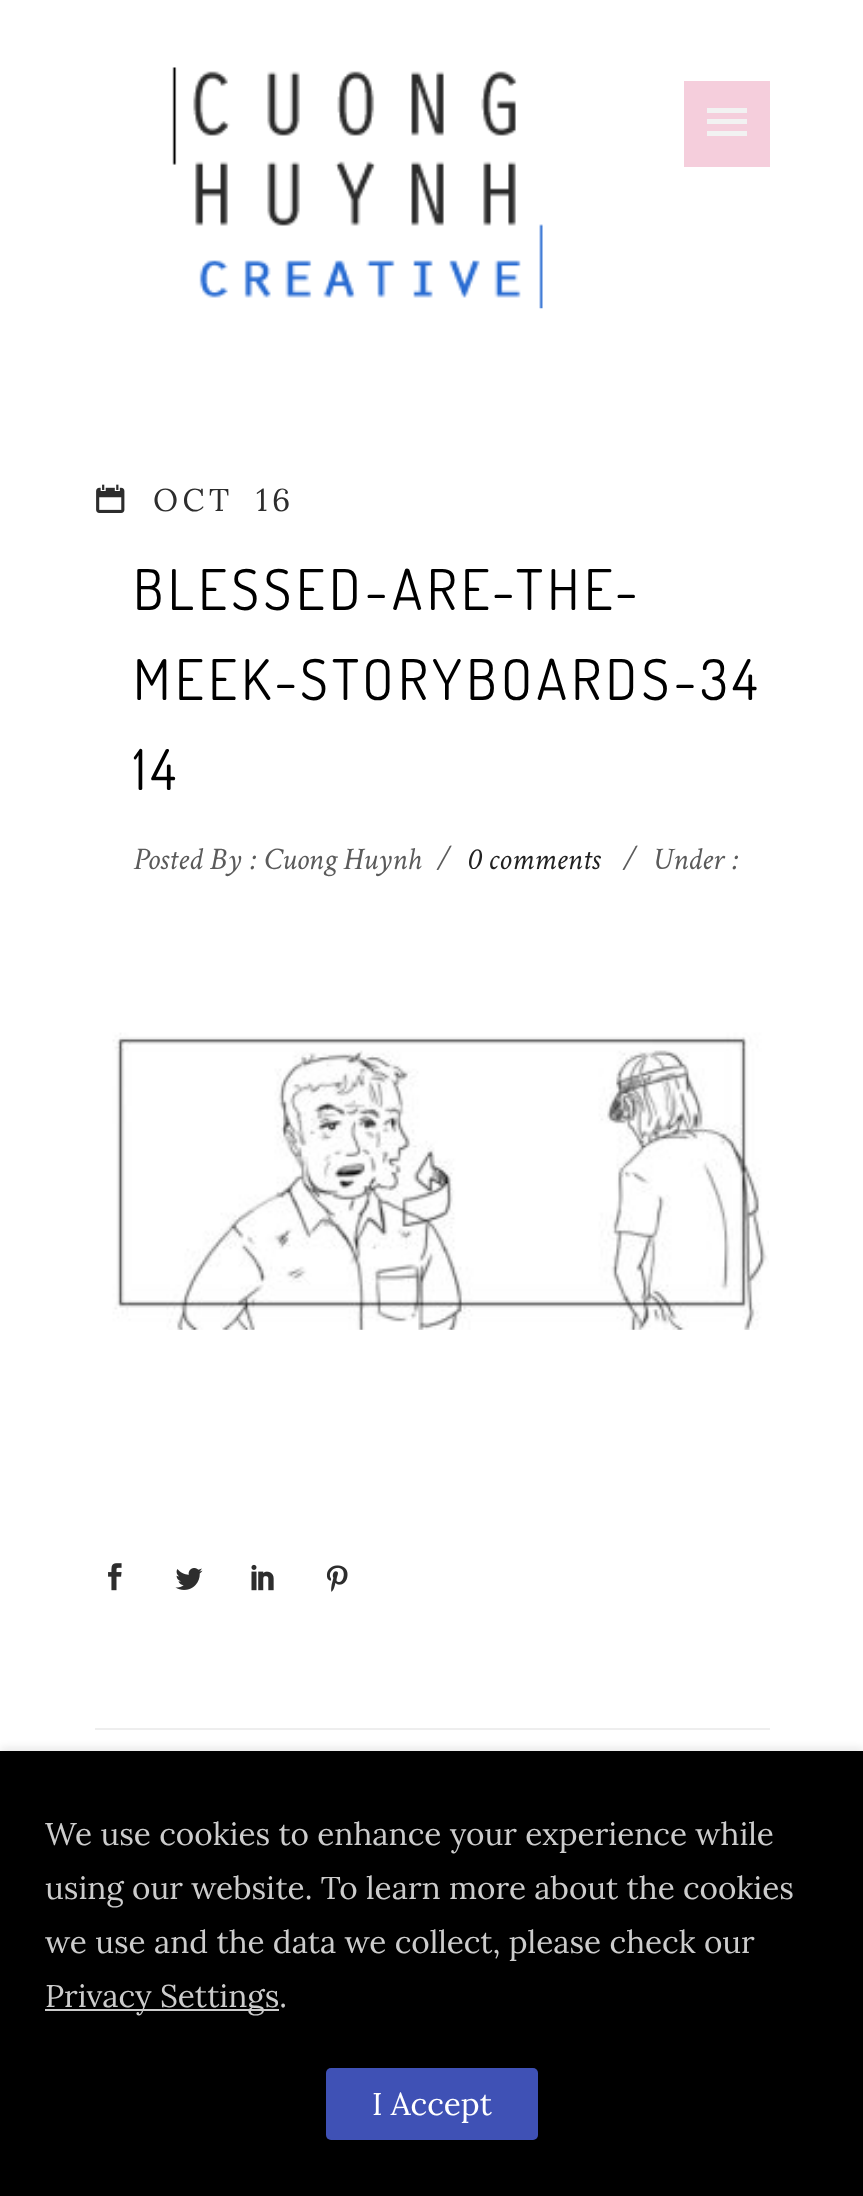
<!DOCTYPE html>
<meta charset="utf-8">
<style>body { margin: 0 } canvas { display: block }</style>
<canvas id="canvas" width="863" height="2196"></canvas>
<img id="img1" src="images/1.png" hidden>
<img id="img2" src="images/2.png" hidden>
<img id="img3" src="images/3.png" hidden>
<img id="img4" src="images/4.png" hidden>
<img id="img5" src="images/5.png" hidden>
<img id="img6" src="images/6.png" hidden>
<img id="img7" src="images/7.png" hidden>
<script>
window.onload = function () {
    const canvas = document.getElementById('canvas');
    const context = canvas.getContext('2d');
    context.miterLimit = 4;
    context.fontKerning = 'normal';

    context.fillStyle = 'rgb(255, 255, 255)';
    context.fillRect(0, 0, 863, 2196);
    context.drawImage(document.getElementById('img1'), 172, 67, 371, 242);
    context.fillStyle = 'rgb(245, 206, 220)';
    context.fillRect(684, 81, 86, 86);
    context.fillStyle = 'rgb(242, 242, 242)';
    context.fillRect(707, 108, 40, 5);
    context.fillRect(707, 119, 40, 5);
    context.fillRect(707, 131, 40, 5);
    context.drawImage(document.getElementById('img2'), 96, 484, 29, 29);
    context.drawImage(document.getElementById('img3'), 112, 1032, 657, 298);
    context.fillStyle = 'rgb(238, 238, 238)';
    context.fillRect(95, 1728, 675, 2);
    context.drawImage(document.getElementById('img4'), 108, 1563, 14, 28);
    context.drawImage(document.getElementById('img5'), 175, 1568, 28, 22);
    context.drawImage(document.getElementById('img6'), 251, 1564, 23, 27);
    context.drawImage(document.getElementById('img7'), 326, 1565, 22, 27);
    context.fillStyle = 'rgba(12, 12, 13, 0.1)';
    context.filter = 'blur(4.5px)';
    context.beginPath();
    context.rect(0, 1748, 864, 446);
    context.fill();
    context.filter = 'none';
    context.fillStyle = 'rgb(0, 0, 0)';
    context.fillRect(0, 1751, 863, 445);
    context.fillStyle = 'rgb(204, 204, 204)';
    context.fillRect(45, 2009, 234, 2);
    context.fillStyle = 'rgb(63, 81, 181)';
    context.beginPath();
    context.roundRect(326, 2068, 212, 72, 5);
    context.fill();
    context.letterSpacing = '4.5px';
    context.font = '31.5px Lora';
    context.fillStyle = 'rgb(45, 45, 45)';
    context.fillText('OCT', 153, 511);
    context.fillText('16', 256, 511);
    context.font = '56.25px Dosis';
    context.fillStyle = 'rgb(0, 0, 0)';
    context.fillText('BLESSED-ARE-THE-', 133, 610);
    context.fillText('MEEK-STORYBOARDS-34', 133, 700);
    context.fillText('14', 133, 790);
    context.letterSpacing = '0px';
    context.font = 'italic 31.5px Crimson Text';
    context.fillStyle = 'rgb(91, 91, 91)';
    context.fillText('Posted By : Cuong Huynh', 133, 869);
    context.fillText('/', 437, 869);
    context.fillStyle = 'rgb(34, 34, 34)';
    context.fillText('0 comments', 467, 869);
    context.fillStyle = 'rgb(91, 91, 91)';
    context.fillText('/', 623, 869);
    context.fillText('Under :', 653, 869);
    context.font = '31.5px Lora';
    context.fillStyle = 'rgb(204, 204, 204)';
    context.fillText('We use cookies to enhance your experience while', 45, 1845);
    context.fillText('using our website. To learn more about the cookies', 45, 1899);
    context.fillText('we use and the data we collect, please check our', 45, 1953);
    context.fillText('Privacy Settings.', 45, 2007);
    context.fillStyle = 'rgb(255, 255, 255)';
    context.fillText('I Accept', 372, 2115);
};
</script>
